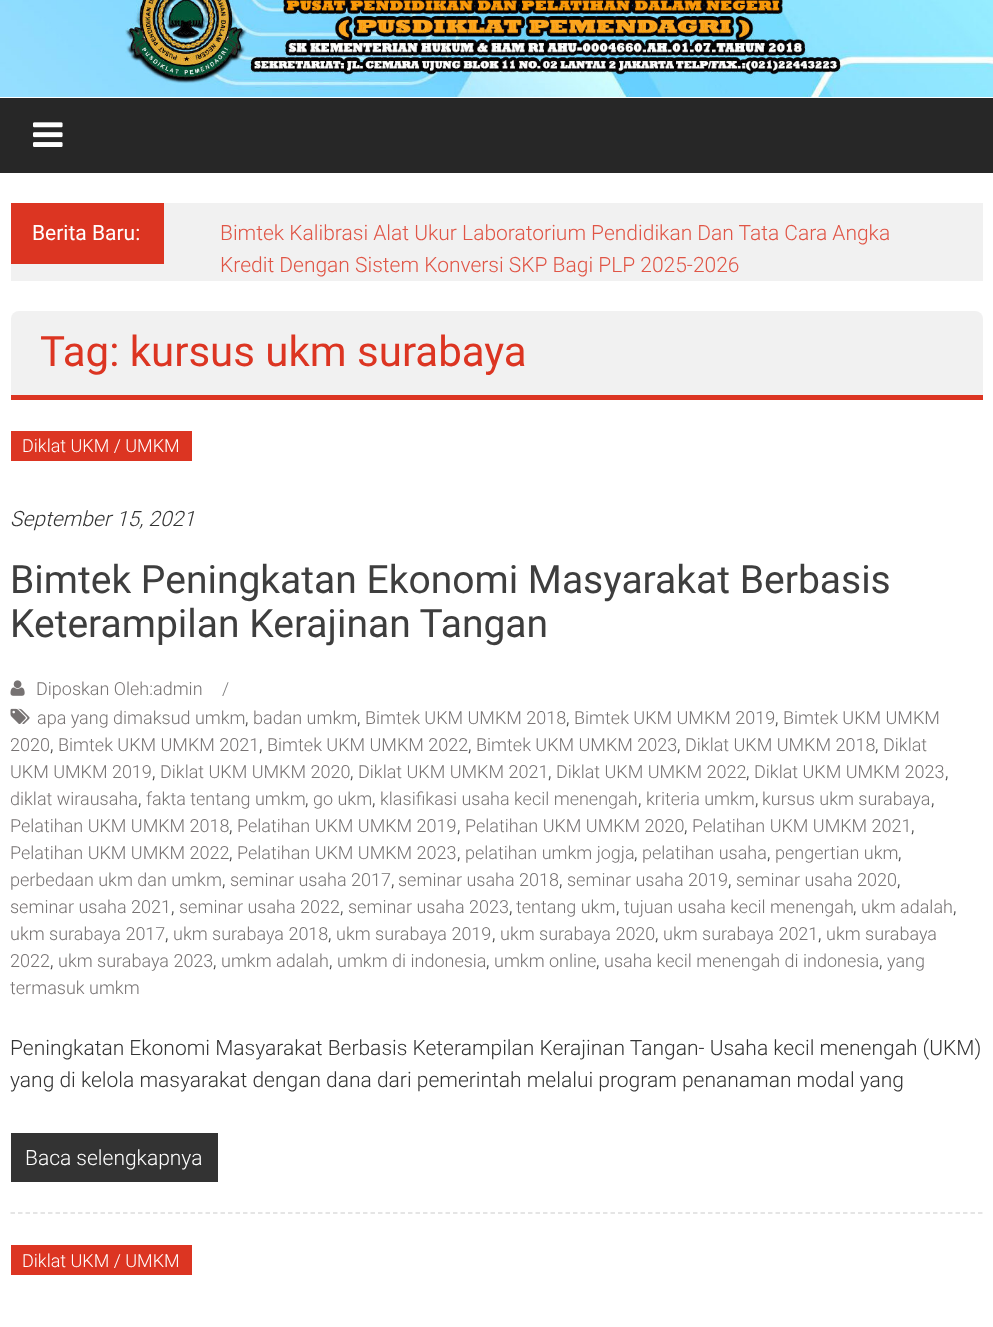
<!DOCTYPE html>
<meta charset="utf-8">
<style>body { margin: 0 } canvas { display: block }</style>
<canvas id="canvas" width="993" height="1327"></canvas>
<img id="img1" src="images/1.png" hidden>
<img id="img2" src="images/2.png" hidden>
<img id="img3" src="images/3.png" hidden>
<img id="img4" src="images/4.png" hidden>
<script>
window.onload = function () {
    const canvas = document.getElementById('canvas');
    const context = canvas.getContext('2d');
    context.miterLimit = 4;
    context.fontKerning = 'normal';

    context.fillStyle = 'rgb(255, 255, 255)';
    context.fillRect(0, 0, 993, 1327);
    context.drawImage(document.getElementById('img1'), 0, 0, 993, 97);
    context.fillStyle = 'rgb(39, 39, 39)';
    context.fillRect(0, 98, 993, 75);
    context.drawImage(document.getElementById('img2'), 33, 122, 30, 25);
    context.fillStyle = 'rgb(241, 241, 241)';
    context.fillRect(11, 203, 972, 78);
    context.fillStyle = 'rgb(220, 53, 34)';
    context.fillRect(11, 203, 153, 61);
    context.fillStyle = 'rgb(241, 241, 241)';
    context.beginPath();
    context.roundRect(11, 311, 972, 88, [8, 8, 0, 0]);
    context.fill();
    context.fillStyle = 'rgb(220, 53, 34)';
    context.fillRect(11, 395, 972, 5);
    context.beginPath();
    context.moveTo(10.5, 1213);
    context.lineTo(982.5, 1213);
    context.strokeStyle = 'rgb(221, 221, 221)';
    context.lineWidth = 1.5;
    context.setLineDash([4.5, 3]);
    context.stroke();
    context.fillRect(11, 431, 181, 30);
    context.drawImage(document.getElementById('img3'), 10, 680, 15, 16);
    context.drawImage(document.getElementById('img4'), 10, 708, 20, 16);
    context.fillStyle = 'rgb(51, 51, 51)';
    context.fillRect(11, 1133, 207, 49);
    context.fillStyle = 'rgb(220, 53, 34)';
    context.fillRect(11, 1245, 181, 30);
    context.font = '21px Roboto';
    context.fillStyle = 'rgb(255, 255, 255)';
    context.fillText('Berita Baru:', 32, 240);
    context.font = '300 21px Roboto';
    context.fillStyle = 'rgb(224, 85, 70)';
    context.fillText('Bimtek Kalibrasi Alat Ukur Laboratorium Pendidikan Dan Tata Cara Angka', 220, 240);
    context.fillText('Kredit Dengan Sistem Konversi SKP Bagi PLP 2025-2026', 220, 272);
    context.font = '42px Roboto';
    context.fillStyle = 'rgb(220, 53, 34)';
    context.fillText('Tag: kursus ukm surabaya', 40, 366);
    context.font = '300 18px Roboto';
    context.fillStyle = 'rgb(255, 255, 255)';
    context.fillText('Diklat UKM / UMKM', 22, 452);
    context.font = 'italic 300 21px Roboto';
    context.fillStyle = 'rgb(51, 51, 51)';
    context.fillText('September 15, 2021', 10, 526);
    context.font = '39px Roboto';
    context.fillStyle = 'rgb(62, 62, 62)';
    context.fillText('Bimtek Peningkatan Ekonomi Masyarakat Berbasis', 10, 593);
    context.fillText('Keterampilan Kerajinan Tangan', 10, 637);
    context.font = '300 18px Roboto';
    context.fillStyle = 'rgb(118, 114, 114)';
    context.fillText('Diposkan Oleh:admin', 36, 695);
    context.fillStyle = 'rgb(128, 128, 128)';
    context.fillText('/', 222, 695);
    context.fillStyle = 'rgb(118, 114, 114)';
    context.fillText('apa yang dimaksud umkm', 37, 724);
    context.fillStyle = 'rgb(51, 51, 51)';
    context.fillText(',', 245, 724);
    context.fillStyle = 'rgb(118, 114, 114)';
    context.fillText('badan umkm', 253, 724);
    context.fillStyle = 'rgb(51, 51, 51)';
    context.fillText(',', 357, 724);
    context.fillStyle = 'rgb(118, 114, 114)';
    context.fillText('Bimtek UKM UMKM 2018', 365, 724);
    context.fillStyle = 'rgb(51, 51, 51)';
    context.fillText(',', 566, 724);
    context.fillStyle = 'rgb(118, 114, 114)';
    context.fillText('Bimtek UKM UMKM 2019', 574, 724);
    context.fillStyle = 'rgb(51, 51, 51)';
    context.fillText(',', 775, 724);
    context.fillStyle = 'rgb(118, 114, 114)';
    context.fillText('Bimtek UKM UMKM', 783, 724);
    context.fillText('2020', 10, 751);
    context.fillStyle = 'rgb(51, 51, 51)';
    context.fillText(',', 50, 751);
    context.fillStyle = 'rgb(118, 114, 114)';
    context.fillText('Bimtek UKM UMKM 2021', 58, 751);
    context.fillStyle = 'rgb(51, 51, 51)';
    context.fillText(',', 259, 751);
    context.fillStyle = 'rgb(118, 114, 114)';
    context.fillText('Bimtek UKM UMKM 2022', 267, 751);
    context.fillStyle = 'rgb(51, 51, 51)';
    context.fillText(',', 468, 751);
    context.fillStyle = 'rgb(118, 114, 114)';
    context.fillText('Bimtek UKM UMKM 2023', 476, 751);
    context.fillStyle = 'rgb(51, 51, 51)';
    context.fillText(',', 677, 751);
    context.fillStyle = 'rgb(118, 114, 114)';
    context.fillText('Diklat UKM UMKM 2018', 685, 751);
    context.fillStyle = 'rgb(51, 51, 51)';
    context.fillText(',', 875, 751);
    context.fillStyle = 'rgb(118, 114, 114)';
    context.fillText('Diklat', 883, 751);
    context.fillText('UKM UMKM 2019', 10, 778);
    context.fillStyle = 'rgb(51, 51, 51)';
    context.fillText(',', 152, 778);
    context.fillStyle = 'rgb(118, 114, 114)';
    context.fillText('Diklat UKM UMKM 2020', 160, 778);
    context.fillStyle = 'rgb(51, 51, 51)';
    context.fillText(',', 350, 778);
    context.fillStyle = 'rgb(118, 114, 114)';
    context.fillText('Diklat UKM UMKM 2021', 358, 778);
    context.fillStyle = 'rgb(51, 51, 51)';
    context.fillText(',', 548, 778);
    context.fillStyle = 'rgb(118, 114, 114)';
    context.fillText('Diklat UKM UMKM 2022', 556, 778);
    context.fillStyle = 'rgb(51, 51, 51)';
    context.fillText(',', 746, 778);
    context.fillStyle = 'rgb(118, 114, 114)';
    context.fillText('Diklat UKM UMKM 2023', 754, 778);
    context.fillStyle = 'rgb(51, 51, 51)';
    context.fillText(',', 945, 778);
    context.fillStyle = 'rgb(118, 114, 114)';
    context.fillText('diklat wirausaha', 10, 805);
    context.fillStyle = 'rgb(51, 51, 51)';
    context.fillText(',', 138, 805);
    context.fillStyle = 'rgb(118, 114, 114)';
    context.fillText('fakta tentang umkm', 146, 805);
    context.fillStyle = 'rgb(51, 51, 51)';
    context.fillText(',', 305, 805);
    context.fillStyle = 'rgb(118, 114, 114)';
    context.fillText('go ukm', 313, 805);
    context.fillStyle = 'rgb(51, 51, 51)';
    context.fillText(',', 372, 805);
    context.fillStyle = 'rgb(118, 114, 114)';
    context.fillText('klasifikasi usaha kecil menengah', 380, 805);
    context.fillStyle = 'rgb(51, 51, 51)';
    context.fillText(',', 638, 805);
    context.fillStyle = 'rgb(118, 114, 114)';
    context.fillText('kriteria umkm', 646, 805);
    context.fillStyle = 'rgb(51, 51, 51)';
    context.fillText(',', 755, 805);
    context.fillStyle = 'rgb(118, 114, 114)';
    context.fillText('kursus ukm surabaya', 762, 805);
    context.fillStyle = 'rgb(51, 51, 51)';
    context.fillText(',', 931, 805);
    context.fillStyle = 'rgb(118, 114, 114)';
    context.fillText('Pelatihan UKM UMKM 2018', 10, 832);
    context.fillStyle = 'rgb(51, 51, 51)';
    context.fillText(',', 229, 832);
    context.fillStyle = 'rgb(118, 114, 114)';
    context.fillText('Pelatihan UKM UMKM 2019', 237, 832);
    context.fillStyle = 'rgb(51, 51, 51)';
    context.fillText(',', 457, 832);
    context.fillStyle = 'rgb(118, 114, 114)';
    context.fillText('Pelatihan UKM UMKM 2020', 465, 832);
    context.fillStyle = 'rgb(51, 51, 51)';
    context.fillText(',', 684, 832);
    context.fillStyle = 'rgb(118, 114, 114)';
    context.fillText('Pelatihan UKM UMKM 2021', 692, 832);
    context.fillStyle = 'rgb(51, 51, 51)';
    context.fillText(',', 911, 832);
    context.fillStyle = 'rgb(118, 114, 114)';
    context.fillText('Pelatihan UKM UMKM 2022', 10, 859);
    context.fillStyle = 'rgb(51, 51, 51)';
    context.fillText(',', 229, 859);
    context.fillStyle = 'rgb(118, 114, 114)';
    context.fillText('Pelatihan UKM UMKM 2023', 237, 859);
    context.fillStyle = 'rgb(51, 51, 51)';
    context.fillText(',', 457, 859);
    context.fillStyle = 'rgb(118, 114, 114)';
    context.fillText('pelatihan umkm jogja', 465, 859);
    context.fillStyle = 'rgb(51, 51, 51)';
    context.fillText(',', 634, 859);
    context.fillStyle = 'rgb(118, 114, 114)';
    context.fillText('pelatihan usaha', 642, 859);
    context.fillStyle = 'rgb(51, 51, 51)';
    context.fillText(',', 767, 859);
    context.fillStyle = 'rgb(118, 114, 114)';
    context.fillText('pengertian ukm', 775, 859);
    context.fillStyle = 'rgb(51, 51, 51)';
    context.fillText(',', 898, 859);
    context.fillStyle = 'rgb(118, 114, 114)';
    context.fillText('perbedaan ukm dan umkm', 10, 886);
    context.fillStyle = 'rgb(51, 51, 51)';
    context.fillText(',', 222, 886);
    context.fillStyle = 'rgb(118, 114, 114)';
    context.fillText('seminar usaha 2017', 230, 886);
    context.fillStyle = 'rgb(51, 51, 51)';
    context.fillText(',', 391, 886);
    context.fillStyle = 'rgb(118, 114, 114)';
    context.fillText('seminar usaha 2018', 398, 886);
    context.fillStyle = 'rgb(51, 51, 51)';
    context.fillText(',', 559, 886);
    context.fillStyle = 'rgb(118, 114, 114)';
    context.fillText('seminar usaha 2019', 567, 886);
    context.fillStyle = 'rgb(51, 51, 51)';
    context.fillText(',', 728, 886);
    context.fillStyle = 'rgb(118, 114, 114)';
    context.fillText('seminar usaha 2020', 736, 886);
    context.fillStyle = 'rgb(51, 51, 51)';
    context.fillText(',', 897, 886);
    context.fillStyle = 'rgb(118, 114, 114)';
    context.fillText('seminar usaha 2021', 10, 913);
    context.fillStyle = 'rgb(51, 51, 51)';
    context.fillText(',', 171, 913);
    context.fillStyle = 'rgb(118, 114, 114)';
    context.fillText('seminar usaha 2022', 179, 913);
    context.fillStyle = 'rgb(51, 51, 51)';
    context.fillText(',', 340, 913);
    context.fillStyle = 'rgb(118, 114, 114)';
    context.fillText('seminar usaha 2023', 348, 913);
    context.fillStyle = 'rgb(51, 51, 51)';
    context.fillText(',', 509, 913);
    context.fillStyle = 'rgb(118, 114, 114)';
    context.fillText('tentang ukm', 516, 913);
    context.fillStyle = 'rgb(51, 51, 51)';
    context.fillText(',', 616, 913);
    context.fillStyle = 'rgb(118, 114, 114)';
    context.fillText('tujuan usaha kecil menengah', 624, 913);
    context.fillStyle = 'rgb(51, 51, 51)';
    context.fillText(',', 853, 913);
    context.fillStyle = 'rgb(118, 114, 114)';
    context.fillText('ukm adalah', 861, 913);
    context.fillStyle = 'rgb(51, 51, 51)';
    context.fillText(',', 953, 913);
    context.fillStyle = 'rgb(118, 114, 114)';
    context.fillText('ukm surabaya 2017', 10, 940);
    context.fillStyle = 'rgb(51, 51, 51)';
    context.fillText(',', 165, 940);
    context.fillStyle = 'rgb(118, 114, 114)';
    context.fillText('ukm surabaya 2018', 173, 940);
    context.fillStyle = 'rgb(51, 51, 51)';
    context.fillText(',', 328, 940);
    context.fillStyle = 'rgb(118, 114, 114)';
    context.fillText('ukm surabaya 2019', 336, 940);
    context.fillStyle = 'rgb(51, 51, 51)';
    context.fillText(',', 492, 940);
    context.fillStyle = 'rgb(118, 114, 114)';
    context.fillText('ukm surabaya 2020', 500, 940);
    context.fillStyle = 'rgb(51, 51, 51)';
    context.fillText(',', 655, 940);
    context.fillStyle = 'rgb(118, 114, 114)';
    context.fillText('ukm surabaya 2021', 663, 940);
    context.fillStyle = 'rgb(51, 51, 51)';
    context.fillText(',', 818, 940);
    context.fillStyle = 'rgb(118, 114, 114)';
    context.fillText('ukm surabaya', 826, 940);
    context.fillText('2022', 10, 967);
    context.fillStyle = 'rgb(51, 51, 51)';
    context.fillText(',', 50, 967);
    context.fillStyle = 'rgb(118, 114, 114)';
    context.fillText('ukm surabaya 2023', 58, 967);
    context.fillStyle = 'rgb(51, 51, 51)';
    context.fillText(',', 213, 967);
    context.fillStyle = 'rgb(118, 114, 114)';
    context.fillText('umkm adalah', 221, 967);
    context.fillStyle = 'rgb(51, 51, 51)';
    context.fillText(',', 329, 967);
    context.fillStyle = 'rgb(118, 114, 114)';
    context.fillText('umkm di indonesia', 337, 967);
    context.fillStyle = 'rgb(51, 51, 51)';
    context.fillText(',', 486, 967);
    context.fillStyle = 'rgb(118, 114, 114)';
    context.fillText('umkm online', 494, 967);
    context.fillStyle = 'rgb(51, 51, 51)';
    context.fillText(',', 596, 967);
    context.fillStyle = 'rgb(118, 114, 114)';
    context.fillText('usaha kecil menengah di indonesia', 604, 967);
    context.fillStyle = 'rgb(51, 51, 51)';
    context.fillText(',', 879, 967);
    context.fillStyle = 'rgb(118, 114, 114)';
    context.fillText('yang', 887, 967);
    context.fillText('termasuk umkm', 10, 994);
    context.font = '300 21px Roboto';
    context.fillStyle = 'rgb(51, 51, 51)';
    context.fillText('Peningkatan Ekonomi Masyarakat Berbasis Keterampilan Kerajinan Tangan- Usaha kecil menengah (UKM)', 10, 1055);
    context.fillText('yang di kelola masyarakat dengan dana dari pemerintah melalui program penanaman modal yang', 10, 1087);
    context.fillStyle = 'rgb(255, 255, 255)';
    context.fillText('Baca selengkapnya', 25, 1165);
    context.font = '300 18px Roboto';
    context.fillText('Diklat UKM / UMKM', 22, 1267);
};
</script>
